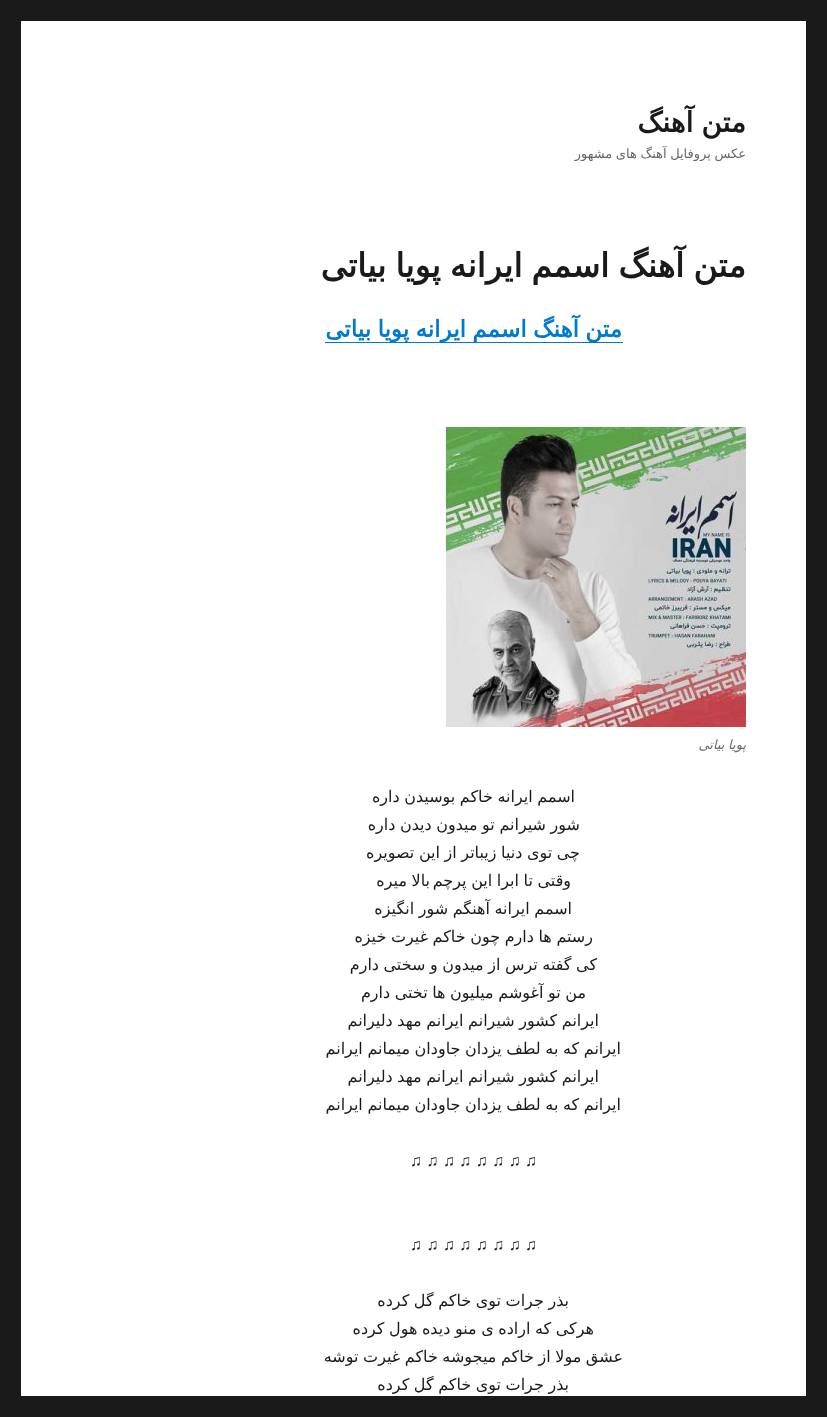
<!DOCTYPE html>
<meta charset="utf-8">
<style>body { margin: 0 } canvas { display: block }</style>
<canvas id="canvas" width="827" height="1417"></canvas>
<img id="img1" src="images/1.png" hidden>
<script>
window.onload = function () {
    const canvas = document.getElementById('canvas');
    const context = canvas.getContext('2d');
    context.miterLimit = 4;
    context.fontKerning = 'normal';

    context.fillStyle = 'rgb(26, 26, 26)';
    context.fillRect(0, 0, 827, 1417);
    context.fillStyle = 'rgb(255, 255, 255)';
    context.fillRect(21, 21, 785, 1375);
    context.fillStyle = 'rgb(0, 122, 204)';
    context.fillRect(325, 342, 298, 1);
    context.drawImage(document.getElementById('img1'), 446, 427, 300, 300);
    context.wordSpacing = '-1px';
    context.direction = 'rtl';
    context.font = 'bold 28px DejaVu Sans';
    context.fillStyle = 'rgb(26, 26, 26)';
    context.fillText('متن آهنگ', 746, 132);
    context.save();
    context.beginPath();
    context.rect(574, 105, 172, 56);
    context.clip();
    context.wordSpacing = '-0.5px';
    context.font = '13px DejaVu Sans';
    context.fillStyle = 'rgb(104, 104, 104)';
    context.fillText('عکس پروفایل آهنگ های مشهور', 746, 158);
    context.restore();
    context.wordSpacing = '-1.5px';
    context.font = 'bold 33px DejaVu Sans';
    context.fillText('متن آهنگ اسمم ایرانه پویا بیاتی', 746, 277);
    context.wordSpacing = '-1px';
    context.font = 'bold 23px DejaVu Sans';
    context.fillStyle = 'rgb(0, 122, 204)';
    context.fillText('متن آهنگ اسمم ایرانه پویا بیاتی', 622, 337);
    context.wordSpacing = '-0.5px';
    context.font = 'italic 13px DejaVu Sans';
    context.fillStyle = 'rgb(104, 104, 104)';
    context.fillText('پویا بیاتی', 746, 749);
    context.font = '16px DejaVu Sans';
    context.fillStyle = 'rgb(26, 26, 26)';
    context.fillText('اسمم ایرانه خاکم بوسیدن داره', 575, 802);
    context.fillText('شور شیرانم تو میدون دیدن داره', 580, 830);
    context.fillText('چی توی دنیا زیباتر از این تصویره', 580, 858);
    context.fillText('وقتی تا ابرا این پرچم', 571, 886);
    context.fillText('بالا میره', 430, 886);
    context.fillText('اسمم ایرانه آهنگم شور انگیزه', 572, 914);
    context.fillText('رستم ها دارم چون خاکم غیرت خیزه', 593, 942);
    context.fillText('کی گفته ترس از میدون و سختی دارم', 597, 970);
    context.fillText('من تو آغوشم میلیون ها تختی دارم', 586, 998);
    context.fillText('ایرانم کشور شیرانم ایرانم مهد دلیرانم', 599, 1026);
    context.fillText('ایرانم که به لطف یزدان جاودان میمانم ایرانم', 621, 1054);
    context.fillText('ایرانم کشور شیرانم ایرانم مهد دلیرانم', 599, 1082);
    context.fillText('ایرانم که به لطف یزدان جاودان میمانم ایرانم', 621, 1110);
    context.wordSpacing = '0px';
    context.direction = 'ltr';
    context.font = '16px Liberation Sans';
    context.fillText('♫ ♫ ♫ ♫ ♫ ♫ ♫ ♫', 410, 1166);
    context.fillText('♫ ♫ ♫ ♫ ♫ ♫ ♫ ♫', 410, 1250);
    context.wordSpacing = '-0.5px';
    context.direction = 'rtl';
    context.font = '16px DejaVu Sans';
    context.fillText('بذر جرات توی خاکم گل کرده', 569, 1306);
    context.fillText('هرکی که اراده ی منو دیده هول کرده', 594, 1334);
    context.fillText('عشق مولا از خاکم میجوشه خاکم غیرت توشه', 623, 1362);
    context.fillText('بذر جرات توی خاکم گل کرده', 569, 1390);
};
</script>
